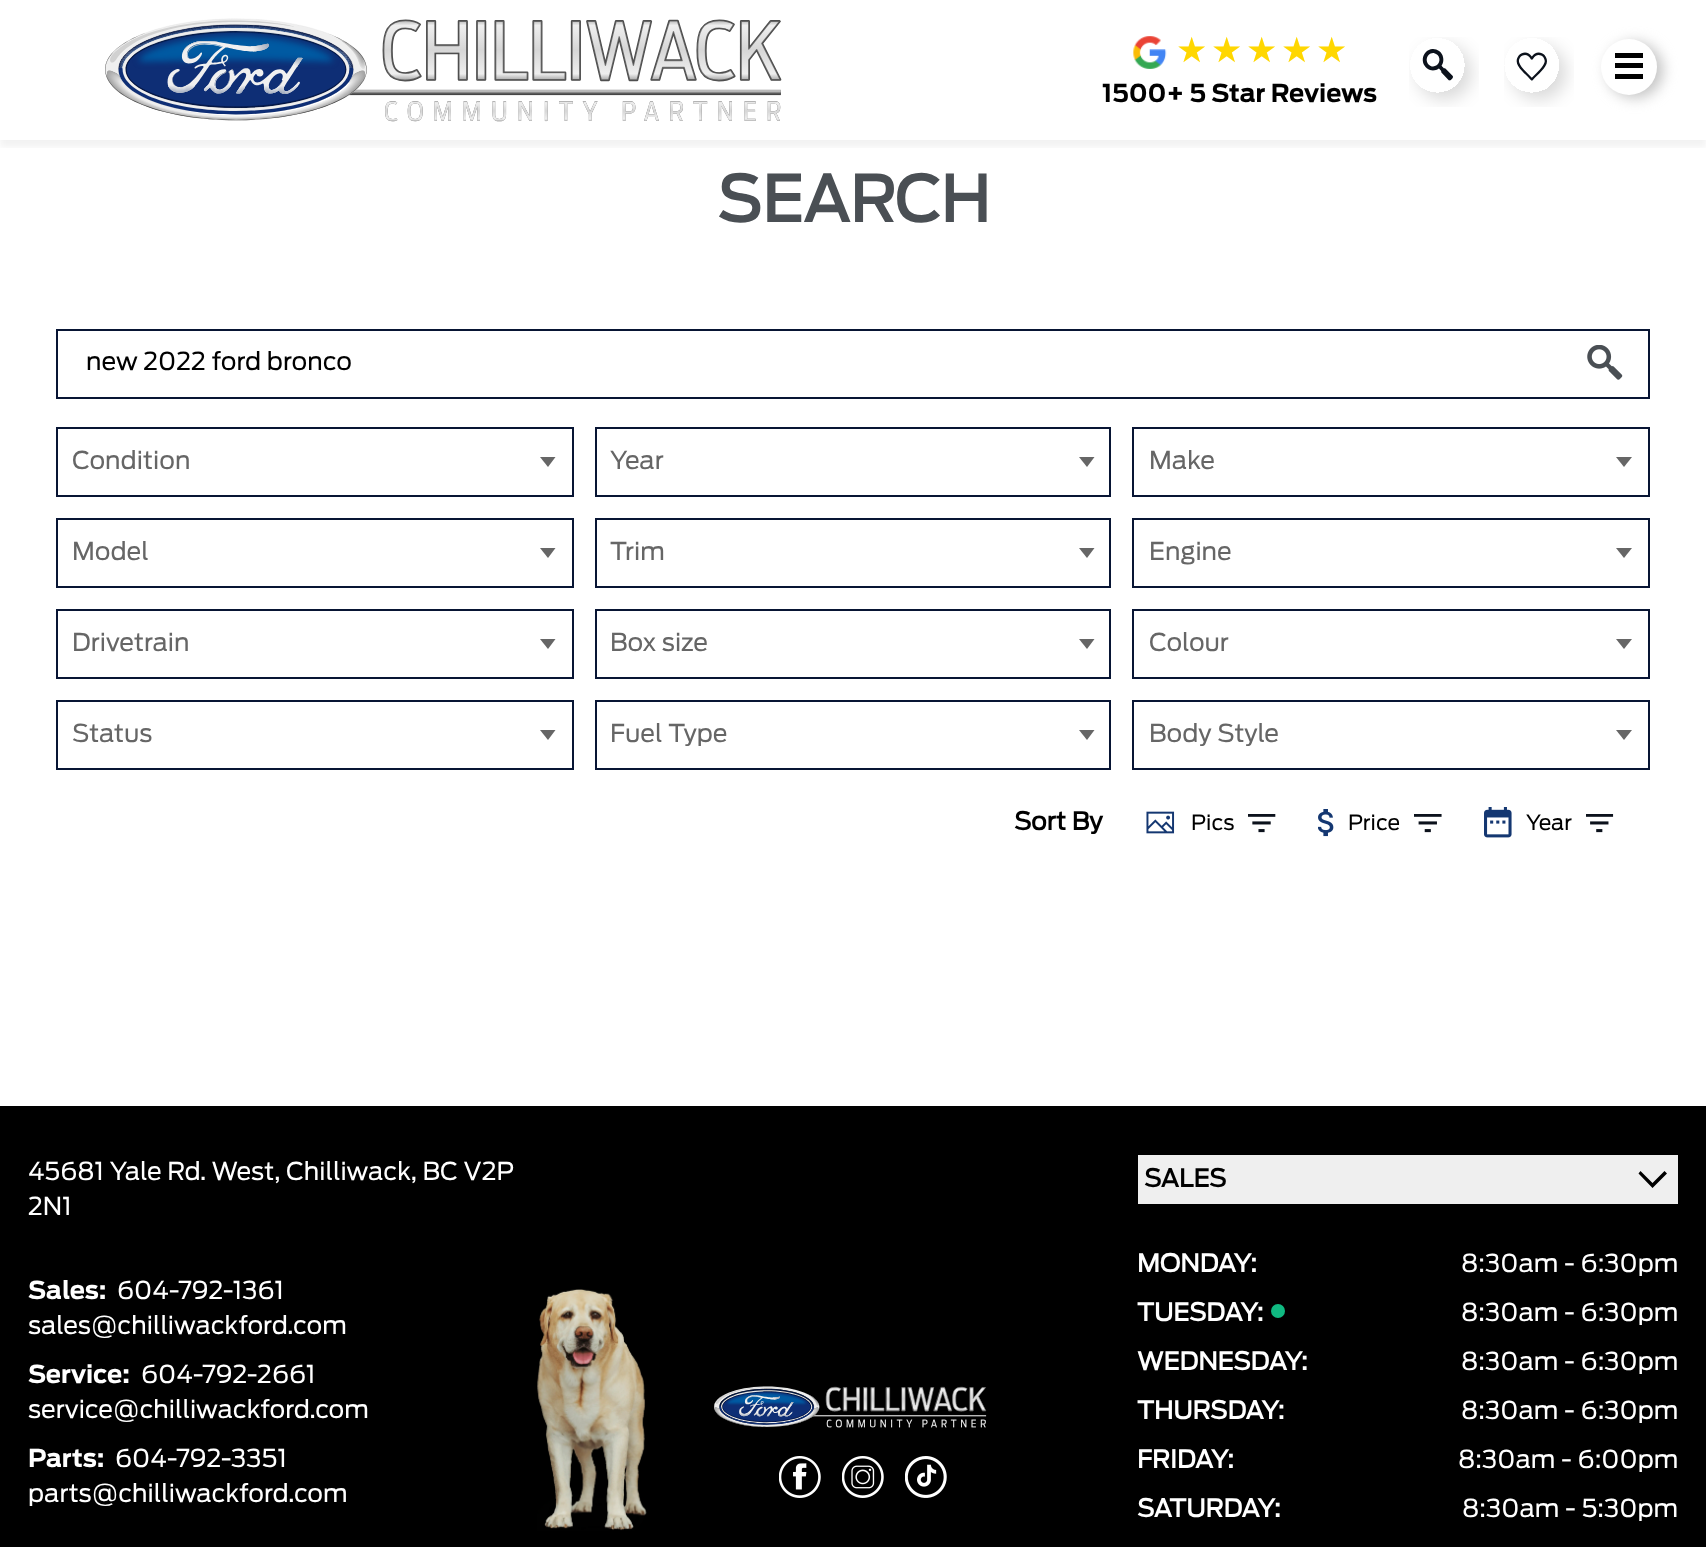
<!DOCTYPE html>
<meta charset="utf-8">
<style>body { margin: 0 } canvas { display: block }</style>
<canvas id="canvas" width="1706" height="1547"></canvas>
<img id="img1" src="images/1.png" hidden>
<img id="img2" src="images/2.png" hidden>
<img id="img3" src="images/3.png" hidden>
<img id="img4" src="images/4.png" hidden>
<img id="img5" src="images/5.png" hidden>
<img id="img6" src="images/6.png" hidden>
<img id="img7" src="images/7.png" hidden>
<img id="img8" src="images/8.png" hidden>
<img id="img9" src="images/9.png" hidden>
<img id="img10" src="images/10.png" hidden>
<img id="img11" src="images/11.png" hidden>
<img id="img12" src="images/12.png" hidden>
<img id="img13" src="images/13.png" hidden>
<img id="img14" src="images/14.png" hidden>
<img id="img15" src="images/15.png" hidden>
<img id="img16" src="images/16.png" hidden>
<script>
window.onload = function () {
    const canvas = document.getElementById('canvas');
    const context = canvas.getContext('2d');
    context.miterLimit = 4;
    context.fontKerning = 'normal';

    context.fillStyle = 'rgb(255, 255, 255)';
    context.fillRect(0, 0, 1706, 1547);
    context.save();
    context.beginPath();
    context.rect(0, 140, 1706, 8);
    context.clip();
    context.fillStyle = 'rgba(0, 0, 0, 0.05)';
    context.filter = 'blur(3.5px)';
    context.beginPath();
    context.rect(0, 7, 1706, 140);
    context.fill();
    context.filter = 'none';
    context.restore();
    context.drawImage(document.getElementById('img1'), 105, 18, 677, 104);
    context.drawImage(document.getElementById('img2'), 1133, 36, 34, 33);
    context.drawImage(document.getElementById('img3'), 1409, 37, 70, 70);
    context.drawImage(document.getElementById('img4'), 1504, 37, 70, 70);
    context.fillStyle = 'rgb(195, 195, 195)';
    context.filter = 'blur(7px)';
    context.beginPath();
    context.roundRect(1607, 42, 56, 56, 28);
    context.fill();
    context.filter = 'none';
    context.fillStyle = 'rgb(255, 255, 255)';
    context.beginPath();
    context.arc(1629, 67, 28, 0, 2 * Math.PI);
    context.fill();
    context.fillStyle = 'rgb(0, 0, 0)';
    context.fillRect(1615, 53, 28, 5);
    context.fillRect(1615, 63, 28, 5);
    context.fillRect(1615, 74, 28, 5);
    context.strokeStyle = 'rgb(8, 21, 52)';
    context.lineWidth = 2;
    context.strokeRect(57, 330, 1592, 68);
    context.drawImage(document.getElementById('img5'), 1587, 345, 36, 35);
    context.strokeRect(57, 428, 516, 68);
    context.fillStyle = 'rgb(102, 102, 102)';
    context.beginPath();
    context.moveTo(540, 457);
    context.lineTo(548, 467);
    context.lineTo(555.5, 457);
    context.closePath();
    context.fill('evenodd');
    context.strokeRect(596, 428, 514, 68);
    context.beginPath();
    context.moveTo(1079, 457);
    context.lineTo(1087, 467);
    context.lineTo(1094.5, 457);
    context.closePath();
    context.fill('evenodd');
    context.strokeRect(1133, 428, 516, 68);
    context.beginPath();
    context.moveTo(1616, 457);
    context.lineTo(1624, 467);
    context.lineTo(1632, 457);
    context.closePath();
    context.fill('evenodd');
    context.strokeRect(57, 519, 516, 68);
    context.beginPath();
    context.moveTo(540, 548);
    context.lineTo(548, 558);
    context.lineTo(555.5, 548);
    context.closePath();
    context.fill('evenodd');
    context.strokeRect(596, 519, 514, 68);
    context.beginPath();
    context.moveTo(1079, 548);
    context.lineTo(1087, 558);
    context.lineTo(1094.5, 548);
    context.closePath();
    context.fill('evenodd');
    context.strokeRect(1133, 519, 516, 68);
    context.beginPath();
    context.moveTo(1616, 548);
    context.lineTo(1624, 558);
    context.lineTo(1632, 548);
    context.closePath();
    context.fill('evenodd');
    context.strokeRect(57, 610, 516, 68);
    context.beginPath();
    context.moveTo(540, 639);
    context.lineTo(548, 649);
    context.lineTo(555.5, 639);
    context.closePath();
    context.fill('evenodd');
    context.strokeRect(596, 610, 514, 68);
    context.beginPath();
    context.moveTo(1079, 639);
    context.lineTo(1087, 649);
    context.lineTo(1094.5, 639);
    context.closePath();
    context.fill('evenodd');
    context.strokeRect(1133, 610, 516, 68);
    context.beginPath();
    context.moveTo(1616, 639);
    context.lineTo(1624, 649);
    context.lineTo(1632, 639);
    context.closePath();
    context.fill('evenodd');
    context.strokeRect(57, 701, 516, 68);
    context.beginPath();
    context.moveTo(540, 730);
    context.lineTo(548, 740);
    context.lineTo(555.5, 730);
    context.closePath();
    context.fill('evenodd');
    context.strokeRect(596, 701, 514, 68);
    context.beginPath();
    context.moveTo(1079, 730);
    context.lineTo(1087, 740);
    context.lineTo(1094.5, 730);
    context.closePath();
    context.fill('evenodd');
    context.strokeRect(1133, 701, 516, 68);
    context.beginPath();
    context.moveTo(1616, 730);
    context.lineTo(1624, 740);
    context.lineTo(1632, 730);
    context.closePath();
    context.fill('evenodd');
    context.drawImage(document.getElementById('img6'), 1146, 811, 29, 23);
    context.drawImage(document.getElementById('img7'), 1248, 814, 28, 19);
    context.drawImage(document.getElementById('img8'), 1318, 809, 16, 28);
    context.drawImage(document.getElementById('img9'), 1414, 814, 28, 19);
    context.drawImage(document.getElementById('img10'), 1484, 807, 28, 31);
    context.drawImage(document.getElementById('img11'), 1586, 814, 28, 19);
    context.fillStyle = 'rgb(0, 0, 0)';
    context.fillRect(0, 1106, 1706, 441);
    context.drawImage(document.getElementById('img12'), 537, 1289, 110, 242);
    context.drawImage(document.getElementById('img13'), 714, 1386, 273, 42);
    context.drawImage(document.getElementById('img14'), 779, 1456, 42, 42);
    context.drawImage(document.getElementById('img15'), 842, 1456, 42, 42);
    context.drawImage(document.getElementById('img16'), 905, 1456, 42, 42);
    context.fillStyle = 'rgb(239, 239, 239)';
    context.fillRect(1138, 1155, 540, 49);
    context.fillStyle = 'rgb(0, 0, 0)';
    context.beginPath();
    context.moveTo(1652.5, 1188);
    context.lineTo(1638.5, 1173.5);
    context.lineTo(1640.5, 1171);
    context.lineTo(1652.5, 1183);
    context.lineTo(1664.5, 1171);
    context.lineTo(1667, 1173.5);
    context.closePath();
    context.fill('evenodd');
    context.fillStyle = 'rgb(16, 185, 129)';
    context.beginPath();
    context.arc(1278, 1311, 7, 0, 2 * Math.PI);
    context.fill();
    context.font = '35px DejaVu Sans';
    context.fillStyle = 'rgb(255, 215, 0)';
    context.fillText('★', 1176, 62);
    context.fillText('★', 1211, 62);
    context.fillText('★', 1246, 62);
    context.fillText('★', 1281, 62);
    context.fillText('★', 1316, 62);
    context.font = 'bold 24.5px "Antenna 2"';
    context.fillStyle = 'rgb(0, 0, 0)';
    context.fillText('1500+ 5 Star Reviews', 1102, 102);
    context.font = 'bold 63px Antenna';
    context.fillStyle = 'rgb(74, 79, 84)';
    context.fillText('SEARCH', 717, 222);
    context.font = '24.5px Antenna';
    context.fillStyle = 'rgb(0, 0, 0)';
    context.fillText('new 2022 ford bronco', 86, 370);
    context.fillStyle = 'rgb(102, 102, 102)';
    context.fillText('Condition', 72, 469);
    context.fillText('Year', 610, 469);
    context.fillText('Make', 1149, 469);
    context.fillText('Model', 72, 560);
    context.fillText('Trim', 610, 560);
    context.fillText('Engine', 1149, 560);
    context.fillText('Drivetrain', 72, 651);
    context.fillText('Box size', 610, 651);
    context.fillText('Colour', 1149, 651);
    context.fillText('Status', 72, 742);
    context.fillText('Fuel Type', 610, 742);
    context.fillText('Body Style', 1149, 742);
    context.font = 'bold 24.5px Antenna';
    context.fillStyle = 'rgb(0, 0, 0)';
    context.fillText('Sort By', 1014, 830);
    context.font = '21px Antenna';
    context.fillText('Pics', 1191, 830);
    context.fillText('Price', 1348, 830);
    context.fillText('Year', 1526, 830);
    context.font = '24.5px Antenna';
    context.fillStyle = 'rgb(255, 255, 255)';
    context.fillText('45681 Yale Rd. West, Chilliwack, BC V2P', 28, 1180);
    context.fillText('2N1', 28, 1215);
    context.font = 'bold 24.5px "Antenna 2"';
    context.fillText('Sales:', 28, 1299);
    context.font = '24.5px Antenna';
    context.fillText('604-792-1361', 117, 1299);
    context.fillText('sales@chilliwackford.com', 28, 1334);
    context.font = 'bold 24.5px "Antenna 2"';
    context.fillText('Service:', 28, 1383);
    context.font = '24.5px Antenna';
    context.fillText('604-792-2661', 141, 1383);
    context.fillText('service@chilliwackford.com', 28, 1418);
    context.font = 'bold 24.5px "Antenna 2"';
    context.fillText('Parts:', 28, 1467);
    context.font = '24.5px Antenna';
    context.fillText('604-792-3351', 115, 1467);
    context.fillText('parts@chilliwackford.com', 28, 1502);
    context.font = 'bold 24.5px Antenna';
    context.fillStyle = 'rgb(0, 0, 0)';
    context.fillText('SALES', 1144, 1187);
    context.fillStyle = 'rgb(255, 255, 255)';
    context.fillText('MONDAY:', 1137, 1272);
    context.font = '24.5px Antenna';
    context.fillText('8:30am - 6:30pm', 1461, 1272);
    context.font = 'bold 24.5px Antenna';
    context.fillText('TUESDAY:', 1137, 1321);
    context.font = '24.5px Antenna';
    context.fillText('8:30am - 6:30pm', 1461, 1321);
    context.font = 'bold 24.5px Antenna';
    context.fillText('WEDNESDAY:', 1137, 1370);
    context.font = '24.5px Antenna';
    context.fillText('8:30am - 6:30pm', 1461, 1370);
    context.font = 'bold 24.5px Antenna';
    context.fillText('THURSDAY:', 1137, 1419);
    context.font = '24.5px Antenna';
    context.fillText('8:30am - 6:30pm', 1461, 1419);
    context.font = 'bold 24.5px Antenna';
    context.fillText('FRIDAY:', 1137, 1468);
    context.font = '24.5px Antenna';
    context.fillText('8:30am - 6:00pm', 1458, 1468);
    context.font = 'bold 24.5px Antenna';
    context.fillText('SATURDAY:', 1137, 1517);
    context.font = '24.5px Antenna';
    context.fillText('8:30am - 5:30pm', 1462, 1517);
};
</script>
